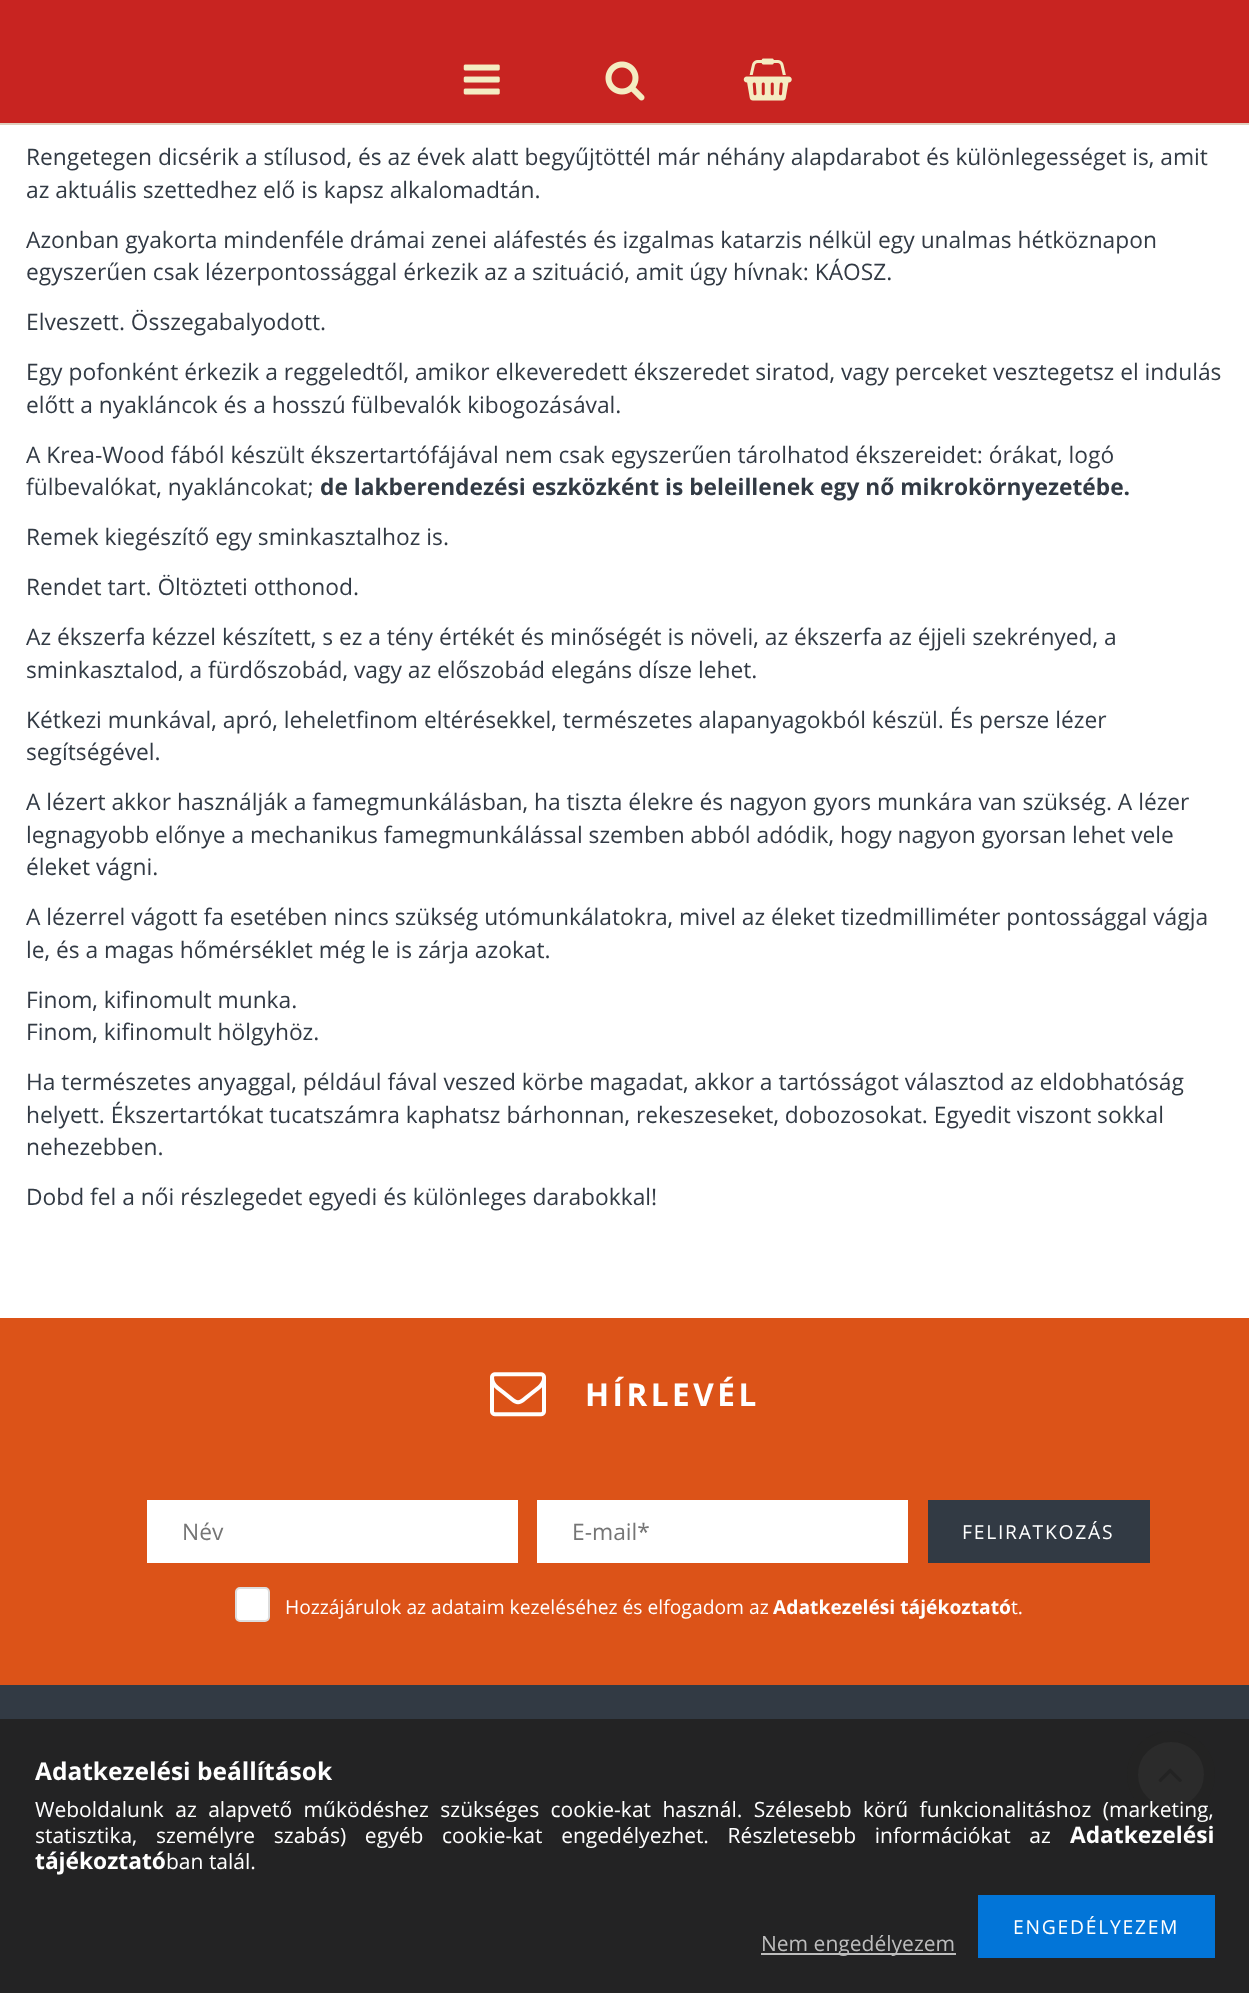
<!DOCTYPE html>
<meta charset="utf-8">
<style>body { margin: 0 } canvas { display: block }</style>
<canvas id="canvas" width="1249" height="1993"></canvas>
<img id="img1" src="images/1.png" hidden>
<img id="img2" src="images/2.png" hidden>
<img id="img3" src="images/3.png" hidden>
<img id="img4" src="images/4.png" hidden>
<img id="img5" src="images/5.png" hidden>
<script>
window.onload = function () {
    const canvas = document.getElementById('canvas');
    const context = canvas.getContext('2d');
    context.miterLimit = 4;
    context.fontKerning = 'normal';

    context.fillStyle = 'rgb(255, 255, 255)';
    context.fillRect(0, 0, 1249, 1993);
    context.fillStyle = 'rgb(200, 36, 33)';
    context.fillRect(0, 0, 1249, 123);
    context.fillStyle = 'rgb(222, 207, 190)';
    context.fillRect(0, 123, 1249, 2);
    context.drawImage(document.getElementById('img1'), 463, 64, 37, 31);
    context.drawImage(document.getElementById('img2'), 605, 61, 40, 40);
    context.drawImage(document.getElementById('img3'), 743, 58, 49, 43);
    context.fillStyle = 'rgb(220, 83, 24)';
    context.fillRect(0, 1318, 1249, 367);
    context.drawImage(document.getElementById('img4'), 490, 1372, 56, 45);
    context.fillStyle = 'rgb(255, 255, 255)';
    context.fillRect(147, 1500, 371, 63);
    context.fillRect(537, 1500, 371, 63);
    context.fillStyle = 'rgb(50, 58, 68)';
    context.fillRect(928, 1500, 222, 63);
    context.fillStyle = 'rgb(255, 255, 255)';
    context.beginPath();
    context.roundRect(236, 1588, 33, 33, 4);
    context.fill();
    context.strokeStyle = 'rgb(221, 221, 221)';
    context.lineWidth = 2;
    context.stroke();
    context.fillStyle = 'rgb(50, 58, 68)';
    context.fillRect(0, 1685, 1249, 34);
    context.fillStyle = 'rgb(35, 35, 36)';
    context.fillRect(0, 1719, 1249, 274);
    context.fillStyle = 'rgb(43, 43, 43)';
    context.beginPath();
    context.roundRect(1132.5, 1736.5, 77, 76, 38);
    context.fill();
    context.strokeStyle = 'rgb(35, 35, 35)';
    context.lineWidth = 11;
    context.stroke();
    context.drawImage(document.getElementById('img5'), 1158, 1768, 24, 15);
    context.fillStyle = 'rgb(2, 117, 216)';
    context.fillRect(978, 1895, 237, 63);
    context.fillStyle = 'rgb(189, 189, 189)';
    context.fillRect(761, 1953, 195, 2);
    context.font = '22.75px Open Sans';
    context.fillStyle = 'rgb(50, 58, 68)';
    context.fillText('Rengetegen dicsérik a stílusod, és az évek alatt begyűjtöttél már néhány alapdarabot és különlegességet is, amit', 26, 165);
    context.fillText('az aktuális szettedhez elő is kapsz alkalomadtán.', 26, 198);
    context.fillText('Azonban gyakorta mindenféle drámai zenei aláfestés és izgalmas katarzis nélkül egy unalmas hétköznapon', 26, 248);
    context.fillText('egyszerűen csak lézerpontossággal érkezik az a szituáció, amit úgy hívnak: KÁOSZ.', 26, 280);
    context.fillText('Elveszett. Összegabalyodott.', 26, 330);
    context.fillText('Egy pofonként érkezik a reggeledtől, amikor elkeveredett ékszeredet siratod, vagy perceket vesztegetsz el indulás', 26, 380);
    context.fillText('előtt a nyakláncok és a hosszú fülbevalók kibogozásával.', 26, 413);
    context.fillText('A Krea-Wood fából készült ékszertartófájával nem csak egyszerűen tárolhatod ékszereidet: órákat, logó', 26, 463);
    context.fillText('fülbevalókat, nyakláncokat;', 26, 495);
    context.font = 'bold 22.75px Open Sans';
    context.fillText('de lakberendezési eszközként is beleillenek egy nő mikrokörnyezetébe.', 320, 495);
    context.font = '22.75px Open Sans';
    context.fillText('Remek kiegészítő egy sminkasztalhoz is.', 26, 545);
    context.fillText('Rendet tart. Öltözteti otthonod.', 26, 595);
    context.fillText('Az ékszerfa kézzel készített, s ez a tény értékét és minőségét is növeli, az ékszerfa az éjjeli szekrényed, a', 26, 645);
    context.fillText('sminkasztalod, a fürdőszobád, vagy az előszobád elegáns dísze lehet.', 26, 678);
    context.fillText('Kétkezi munkával, apró, leheletfinom eltérésekkel, természetes alapanyagokból készül. És persze lézer', 26, 728);
    context.fillText('segítségével.', 26, 760);
    context.fillText('A lézert akkor használják a famegmunkálásban, ha tiszta élekre és nagyon gyors munkára van szükség. A lézer', 26, 810);
    context.fillText('legnagyobb előnye a mechanikus famegmunkálással szemben abból adódik, hogy nagyon gyorsan lehet vele', 26, 843);
    context.fillText('éleket vágni.', 26, 875);
    context.fillText('A lézerrel vágott fa esetében nincs szükség utómunkálatokra, mivel az éleket tizedmilliméter pontossággal vágja', 26, 925);
    context.fillText('le, és a magas hőmérséklet még le is zárja azokat.', 26, 958);
    context.fillText('Finom, kifinomult munka.', 26, 1008);
    context.fillText('Finom, kifinomult hölgyhöz.', 26, 1040);
    context.fillText('Ha természetes anyaggal, például fával veszed körbe magadat, akkor a tartósságot választod az eldobhatóság', 26, 1090);
    context.fillText('helyett. Ékszertartókat tucatszámra kaphatsz bárhonnan, rekeszeseket, dobozosokat. Egyedit viszont sokkal', 26, 1123);
    context.fillText('nehezebben.', 26, 1155);
    context.fillText('Dobd fel a női részlegedet egyedi és különleges darabokkal!', 26, 1205);
    context.letterSpacing = '3.5px';
    context.font = 'bold 31.5px Open Sans';
    context.fillStyle = 'rgb(255, 255, 255)';
    context.fillText('HÍRLEVÉL', 585, 1406);
    context.letterSpacing = '0px';
    context.font = '22.75px Open Sans';
    context.fillStyle = 'rgb(117, 117, 117)';
    context.fillText('Név', 182, 1540);
    context.fillText('E-mail*', 572, 1540);
    context.letterSpacing = '1.75px';
    context.font = '19.25px Open Sans';
    context.fillStyle = 'rgb(255, 255, 255)';
    context.fillText('FELIRATKOZÁS', 962, 1539);
    context.letterSpacing = '0px';
    context.fillText('Hozzájárulok az adataim kezeléséhez és elfogadom az', 285, 1614);
    context.font = 'bold 19.25px Open Sans';
    context.fillText('Adatkezelési tájékoztató', 773, 1614);
    context.font = '19.25px Open Sans';
    context.fillText('t.', 1011, 1614);
    context.font = 'bold 24.5px Open Sans';
    context.fillText('Adatkezelési beállítások', 35, 1780);
    context.wordSpacing = '6px';
    context.font = '21px Open Sans';
    context.fillText('Weboldalunk az alapvető működéshez szükséges cookie-kat használ. Szélesebb körű funkcionalitáshoz (marketing,', 35, 1817);
    context.wordSpacing = '13.25px';
    context.fillText('statisztika, személyre szabás) egyéb cookie-kat engedélyezhet. Részletesebb információkat az', 35, 1843);
    context.wordSpacing = '0px';
    context.font = 'bold 22.75px Open Sans';
    context.fillText('Adatkezelési', 1070, 1843);
    context.fillText('tájékoztató', 35, 1869);
    context.font = '21px Open Sans';
    context.fillText('ban talál.', 166, 1869);
    context.letterSpacing = '1.75px';
    context.font = '19.25px Open Sans';
    context.fillText('ENGEDÉLYEZEM', 1013, 1934);
    context.letterSpacing = '0px';
    context.font = '21px Open Sans';
    context.fillStyle = 'rgb(189, 189, 189)';
    context.fillText('Nem engedélyezem', 761, 1951);
};
</script>
